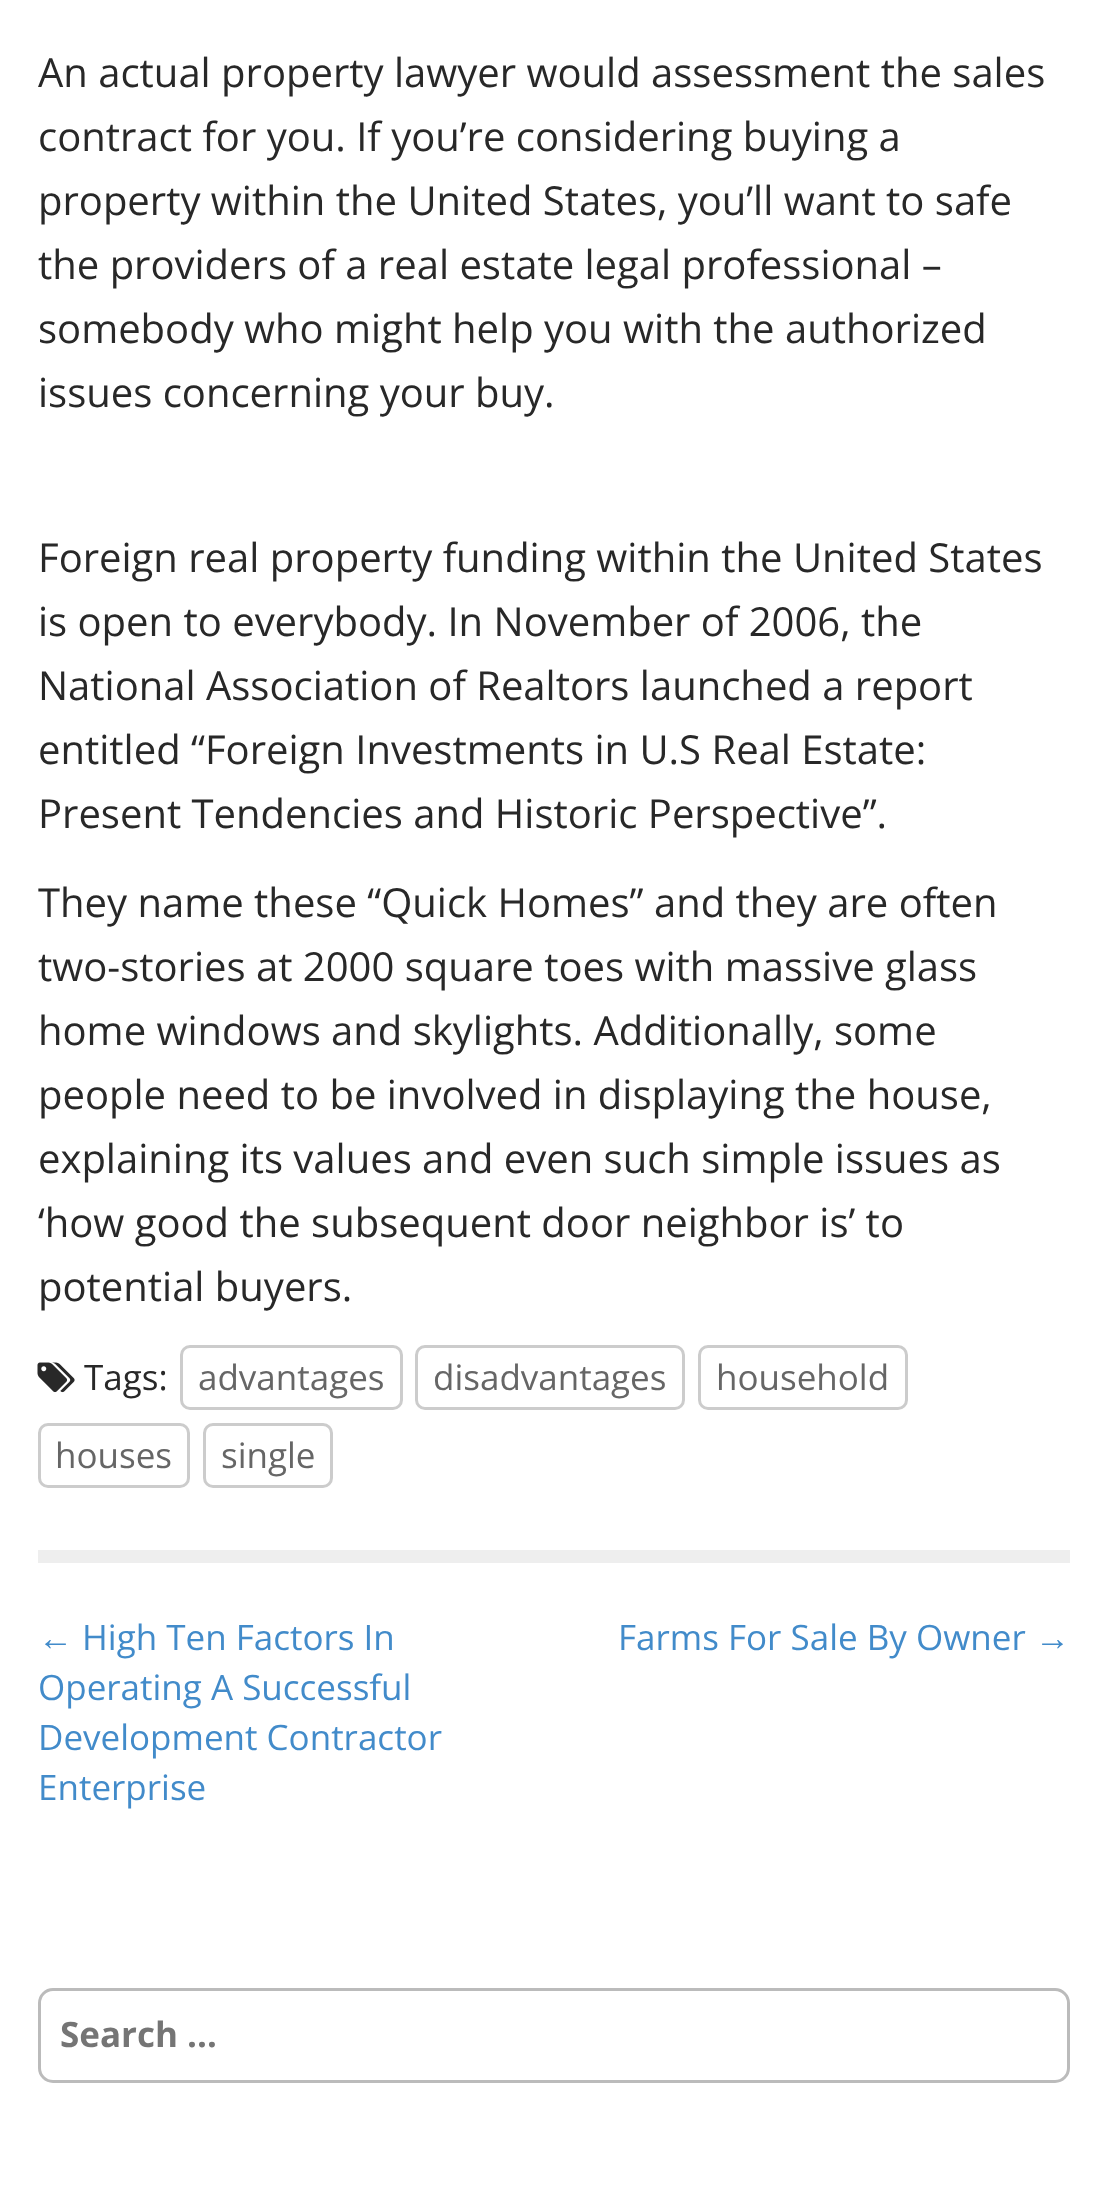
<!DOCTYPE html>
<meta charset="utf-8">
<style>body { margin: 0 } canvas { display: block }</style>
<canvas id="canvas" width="1107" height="2206"></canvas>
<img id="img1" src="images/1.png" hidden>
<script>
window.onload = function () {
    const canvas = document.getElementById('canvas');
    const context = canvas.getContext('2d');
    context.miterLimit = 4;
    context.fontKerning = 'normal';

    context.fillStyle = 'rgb(255, 255, 255)';
    context.fillRect(0, 0, 1107, 2206);
    context.fillStyle = 'rgb(238, 238, 238)';
    context.fillRect(38, 1550, 1032, 13);
    context.drawImage(document.getElementById('img1'), 37, 1362, 38, 31);
    context.beginPath();
    context.roundRect(181.5, 1346.5, 220, 62, 8.5);
    context.strokeStyle = 'rgb(204, 204, 204)';
    context.lineWidth = 3;
    context.stroke();
    context.beginPath();
    context.roundRect(416.5, 1346.5, 267, 62, 8.5);
    context.stroke();
    context.beginPath();
    context.roundRect(699.5, 1346.5, 207, 62, 8.5);
    context.stroke();
    context.beginPath();
    context.roundRect(39.5, 1424.5, 149, 62, 8.5);
    context.stroke();
    context.beginPath();
    context.roundRect(204.5, 1424.5, 127, 62, 8.5);
    context.stroke();
    context.beginPath();
    context.roundRect(39.5, 1989.5, 1029, 92, 13.5);
    context.strokeStyle = 'rgb(187, 187, 187)';
    context.stroke();
    context.font = '40px Open Sans';
    context.fillStyle = 'rgb(40, 40, 40)';
    context.fillText('An actual property lawyer would assessment the sales', 38, 87);
    context.fillText('contract for you. If you’re considering buying a', 38, 151);
    context.fillText('property within the United States, you’ll want to safe', 38, 215);
    context.fillText('the providers of a real estate legal professional –', 38, 279);
    context.fillText('somebody who might help you with the authorized', 38, 343);
    context.fillText('issues concerning your buy.', 38, 407);
    context.fillText('Foreign real property funding within the United States', 38, 572);
    context.fillText('is open to everybody. In November of 2006, the', 38, 636);
    context.fillText('National Association of Realtors launched a report', 38, 700);
    context.fillText('entitled “Foreign Investments in U.S Real Estate:', 38, 764);
    context.fillText('Present Tendencies and Historic Perspective”.', 38, 828);
    context.fillText('They name these “Quick Homes” and they are often', 38, 917);
    context.fillText('two-stories at 2000 square toes with massive glass', 38, 981);
    context.fillText('home windows and skylights. Additionally, some', 38, 1045);
    context.fillText('people need to be involved in displaying the house,', 38, 1109);
    context.fillText('explaining its values and even such simple issues as', 38, 1173);
    context.fillText('‘how good the subsequent door neighbor is’ to', 38, 1237);
    context.fillText('potential buyers.', 38, 1301);
    context.font = '35px Open Sans';
    context.fillText('Tags:', 84, 1390);
    context.fillStyle = 'rgb(102, 102, 102)';
    context.fillText('advantages', 198, 1390);
    context.fillText('disadvantages', 433, 1390);
    context.fillText('household', 716, 1390);
    context.fillText('houses', 55, 1468);
    context.fillText('single', 221, 1468);
    context.font = '35px Liberation Sans';
    context.fillStyle = 'rgb(66, 139, 202)';
    context.fillText('←', 38, 1650);
    context.font = '35px Open Sans';
    context.fillText('High Ten Factors In', 82, 1650);
    context.fillText('Operating A Successful', 38, 1700);
    context.fillText('Development Contractor', 38, 1750);
    context.fillText('Enterprise', 38, 1800);
    context.fillText('Farms For Sale By Owner', 618, 1650);
    context.font = '35px Liberation Sans';
    context.fillText('→', 1035, 1650);
    context.font = 'bold 35px Open Sans';
    context.fillStyle = 'rgb(117, 117, 117)';
    context.fillText('Search …', 60, 2047);
};
</script>
